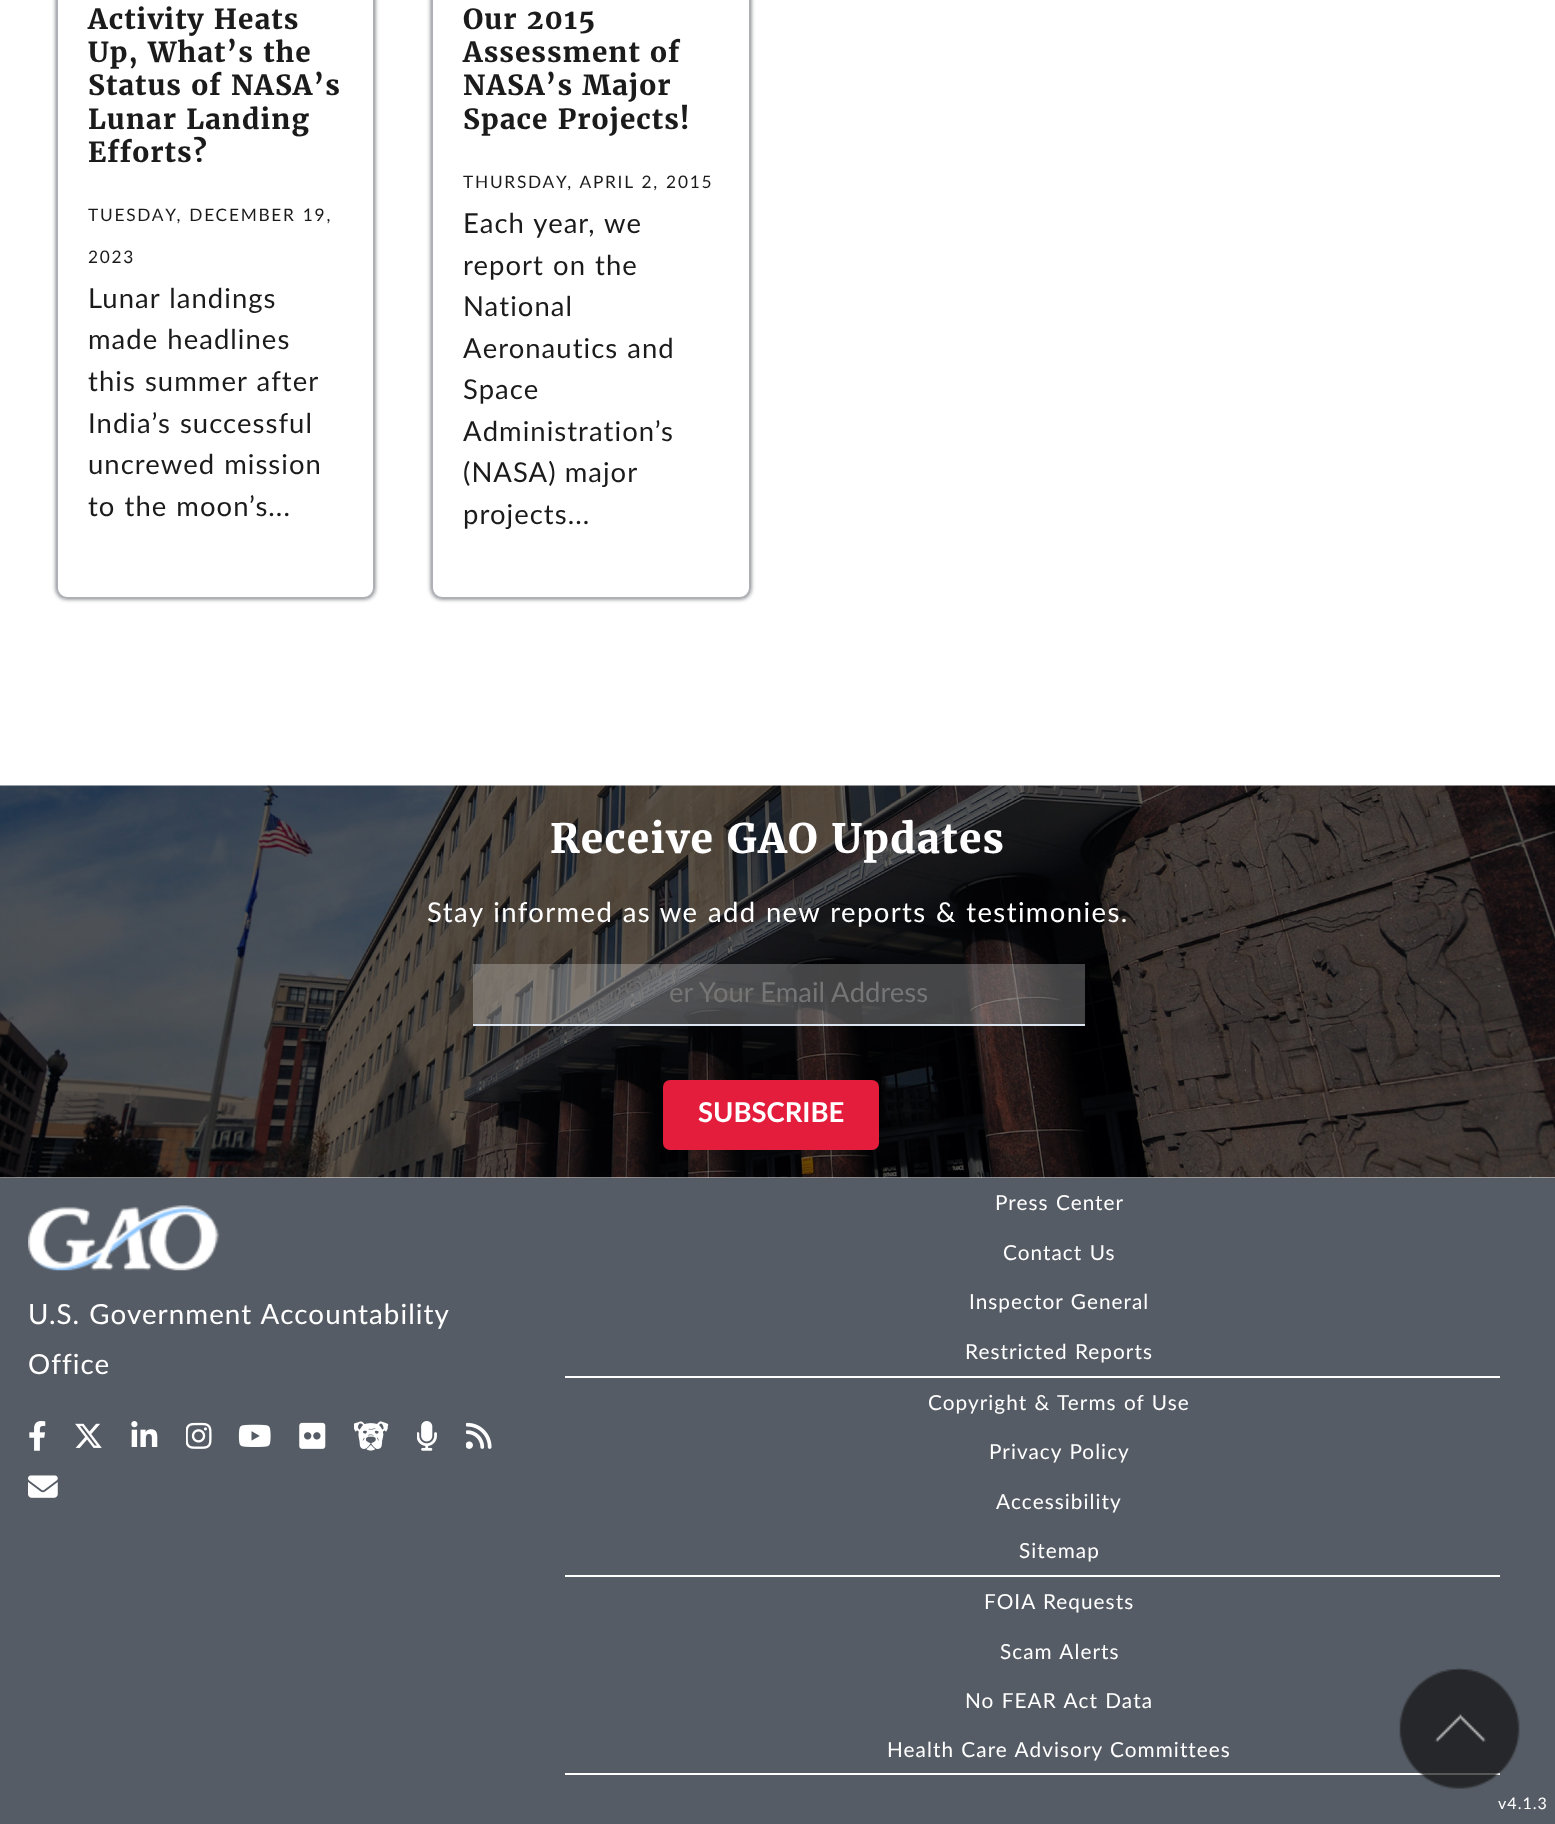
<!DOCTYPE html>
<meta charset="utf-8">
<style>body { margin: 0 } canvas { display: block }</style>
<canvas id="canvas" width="1555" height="1824"></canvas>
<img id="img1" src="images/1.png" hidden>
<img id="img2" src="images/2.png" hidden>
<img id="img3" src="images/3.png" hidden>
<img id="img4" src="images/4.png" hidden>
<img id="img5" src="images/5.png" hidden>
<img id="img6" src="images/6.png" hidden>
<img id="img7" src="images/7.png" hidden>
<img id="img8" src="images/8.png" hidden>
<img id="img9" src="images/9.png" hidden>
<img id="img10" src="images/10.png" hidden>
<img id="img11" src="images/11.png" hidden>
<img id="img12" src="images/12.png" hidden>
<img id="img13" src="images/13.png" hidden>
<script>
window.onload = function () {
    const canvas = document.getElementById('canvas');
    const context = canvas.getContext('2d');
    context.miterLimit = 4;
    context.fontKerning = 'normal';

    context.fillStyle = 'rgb(255, 255, 255)';
    context.fillRect(0, 0, 1555, 1824);
    context.save();
    context.beginPath();
    context.moveTo(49, 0);
    context.lineTo(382, 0);
    context.lineTo(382, 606);
    context.lineTo(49, 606);
    context.closePath();
    context.moveTo(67, -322);
    context.lineTo(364, -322);
    context.bezierCurveTo(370, -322, 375, -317, 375, -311);
    context.lineTo(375, 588);
    context.bezierCurveTo(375, 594, 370, 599, 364, 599);
    context.lineTo(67, 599);
    context.bezierCurveTo(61, 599, 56, 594, 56, 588);
    context.lineTo(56, -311);
    context.bezierCurveTo(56, -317, 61, -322, 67, -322);
    context.closePath();
    context.clip('evenodd');
    context.fillStyle = 'rgb(113, 118, 122)';
    context.filter = 'blur(2px)';
    context.beginPath();
    context.roundRect(56, -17, 319, 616, 11);
    context.fill();
    context.filter = 'none';
    context.restore();
    context.beginPath();
    context.roundRect(57, -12, 317, 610, 10);
    context.strokeStyle = 'rgb(174, 176, 181)';
    context.lineWidth = 2;
    context.stroke();
    context.save();
    context.beginPath();
    context.moveTo(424, 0);
    context.lineTo(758, 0);
    context.lineTo(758, 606);
    context.lineTo(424, 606);
    context.closePath();
    context.moveTo(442, -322);
    context.lineTo(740, -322);
    context.bezierCurveTo(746, -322, 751, -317, 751, -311);
    context.lineTo(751, 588);
    context.bezierCurveTo(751, 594, 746, 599, 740, 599);
    context.lineTo(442, 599);
    context.bezierCurveTo(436, 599, 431, 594, 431, 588);
    context.lineTo(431, -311);
    context.bezierCurveTo(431, -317, 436, -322, 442, -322);
    context.closePath();
    context.clip('evenodd');
    context.fillStyle = 'rgb(113, 118, 122)';
    context.filter = 'blur(2px)';
    context.beginPath();
    context.roundRect(431, -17, 320, 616, 11);
    context.fill();
    context.filter = 'none';
    context.restore();
    context.beginPath();
    context.roundRect(432, -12, 318, 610, 10);
    context.stroke();
    context.drawImage(document.getElementById('img1'), 0, 785, 1555, 393);
    context.fillStyle = 'rgba(220, 220, 220, 0.3)';
    context.fillRect(473, 964, 612, 60);
    context.fillStyle = 'rgb(220, 228, 239)';
    context.fillRect(473, 1024, 612, 2);
    context.fillStyle = 'rgb(228, 29, 61)';
    context.beginPath();
    context.roundRect(663, 1080, 216, 70, 7);
    context.fill();
    context.fillStyle = 'rgb(86, 92, 101)';
    context.fillRect(0, 1178, 1555, 646);
    context.drawImage(document.getElementById('img2'), 28, 1205, 192, 66);
    context.drawImage(document.getElementById('img3'), 29, 1421, 17, 30);
    context.drawImage(document.getElementById('img4'), 75, 1423, 27, 25);
    context.drawImage(document.getElementById('img5'), 131, 1421, 27, 26);
    context.drawImage(document.getElementById('img6'), 186, 1422, 26, 27);
    context.drawImage(document.getElementById('img7'), 238, 1424, 33, 23);
    context.drawImage(document.getElementById('img8'), 299, 1422, 27, 27);
    context.drawImage(document.getElementById('img9'), 354, 1421, 35, 30);
    context.drawImage(document.getElementById('img10'), 417, 1421, 20, 30);
    context.drawImage(document.getElementById('img11'), 466, 1422, 26, 27);
    context.drawImage(document.getElementById('img12'), 28, 1475, 30, 23);
    context.fillStyle = 'rgb(255, 255, 255)';
    context.fillRect(565, 1376, 935, 2);
    context.fillRect(565, 1575, 935, 2);
    context.fillRect(565, 1773, 935, 2);
    context.drawImage(document.getElementById('img13'), 1399, 1668, 121, 121);
    context.letterSpacing = '1.05px';
    context.wordSpacing = '1px';
    context.font = 'bold 27.75px Merriweather';
    context.fillStyle = 'rgb(27, 27, 27)';
    context.fillText('Activity Heats', 88, 29);
    context.fillText('Up, What’s the', 88, 62);
    context.fillText('Status of NASA’s', 88, 95);
    context.fillText('Lunar Landing', 88, 129);
    context.wordSpacing = '0px';
    context.fillText('Efforts?', 88, 162);
    context.letterSpacing = '1.75px';
    context.wordSpacing = '1px';
    context.font = '17.3px Lato';
    context.fillText('TUESDAY, DECEMBER 19,', 88, 221);
    context.wordSpacing = '0px';
    context.fillText('2023', 88, 263);
    context.letterSpacing = '1.05px';
    context.wordSpacing = '1px';
    context.font = '27.45px Lato';
    context.fillText('Lunar landings', 88, 308);
    context.fillText('made headlines', 88, 349);
    context.fillText('this summer after', 88, 391);
    context.fillText('India’s successful', 88, 433);
    context.fillText('uncrewed mission', 88, 474);
    context.fillText('to the moon’s...', 88, 516);
    context.font = 'bold 27.75px Merriweather';
    context.fillText('Our 2015', 463, 29);
    context.fillText('Assessment of', 463, 62);
    context.fillText('NASA’s Major', 463, 95);
    context.fillText('Space Projects!', 463, 129);
    context.letterSpacing = '1.75px';
    context.font = '17.3px Lato';
    context.fillText('THURSDAY, APRIL 2, 2015', 463, 188);
    context.letterSpacing = '1.05px';
    context.font = '27.45px Lato';
    context.fillText('Each year, we', 463, 233);
    context.fillText('report on the', 463, 275);
    context.wordSpacing = '0px';
    context.fillText('National', 463, 316);
    context.wordSpacing = '1px';
    context.fillText('Aeronautics and', 463, 358);
    context.wordSpacing = '0px';
    context.fillText('Space', 463, 399);
    context.fillText('Administration’s', 463, 441);
    context.fillText('(NASA) major', 463, 482);
    context.fillText('projects...', 463, 524);
    context.letterSpacing = '1.25px';
    context.wordSpacing = '1px';
    context.font = 'bold 40.5px Merriweather';
    context.fillStyle = 'rgb(255, 255, 255)';
    context.fillText('Receive GAO Updates', 550, 853);
    context.letterSpacing = '1.4px';
    context.font = '27.45px Lato';
    context.fillText('Stay informed as we add new reports & testimonies.', 427, 922);
    context.letterSpacing = '0px';
    context.wordSpacing = '0px';
    context.fillStyle = 'rgb(117, 117, 117)';
    context.fillText('er Your Email Address', 669, 1002);
    context.font = 'bold 27.45px Lato';
    context.fillStyle = 'rgb(255, 255, 255)';
    context.fillText('SUBSCRIBE', 698, 1122);
    context.letterSpacing = '1.05px';
    context.wordSpacing = '1px';
    context.font = '27.75px Lato';
    context.fillText('U.S. Government Accountability', 28, 1324);
    context.wordSpacing = '0px';
    context.fillText('Office', 28, 1374);
    context.wordSpacing = '1px';
    context.font = '20.75px Lato';
    context.fillText('Press Center', 995, 1210);
    context.fillText('Contact Us', 1003, 1260);
    context.fillText('Inspector General', 969, 1309);
    context.fillText('Restricted Reports', 965, 1359);
    context.fillText('Copyright & Terms of Use', 928, 1410);
    context.fillText('Privacy Policy', 989, 1459);
    context.wordSpacing = '0px';
    context.fillText('Accessibility', 996, 1509);
    context.fillText('Sitemap', 1019, 1558);
    context.wordSpacing = '1px';
    context.fillText('FOIA Requests', 984, 1609);
    context.fillText('Scam Alerts', 1000, 1659);
    context.fillText('No FEAR Act Data', 965, 1708);
    context.fillText('Health Care Advisory Committees', 887, 1757);
    context.wordSpacing = '0px';
    context.font = '16px Lato';
    context.fillText('v4.1.3', 1498, 1809);
};
</script>
